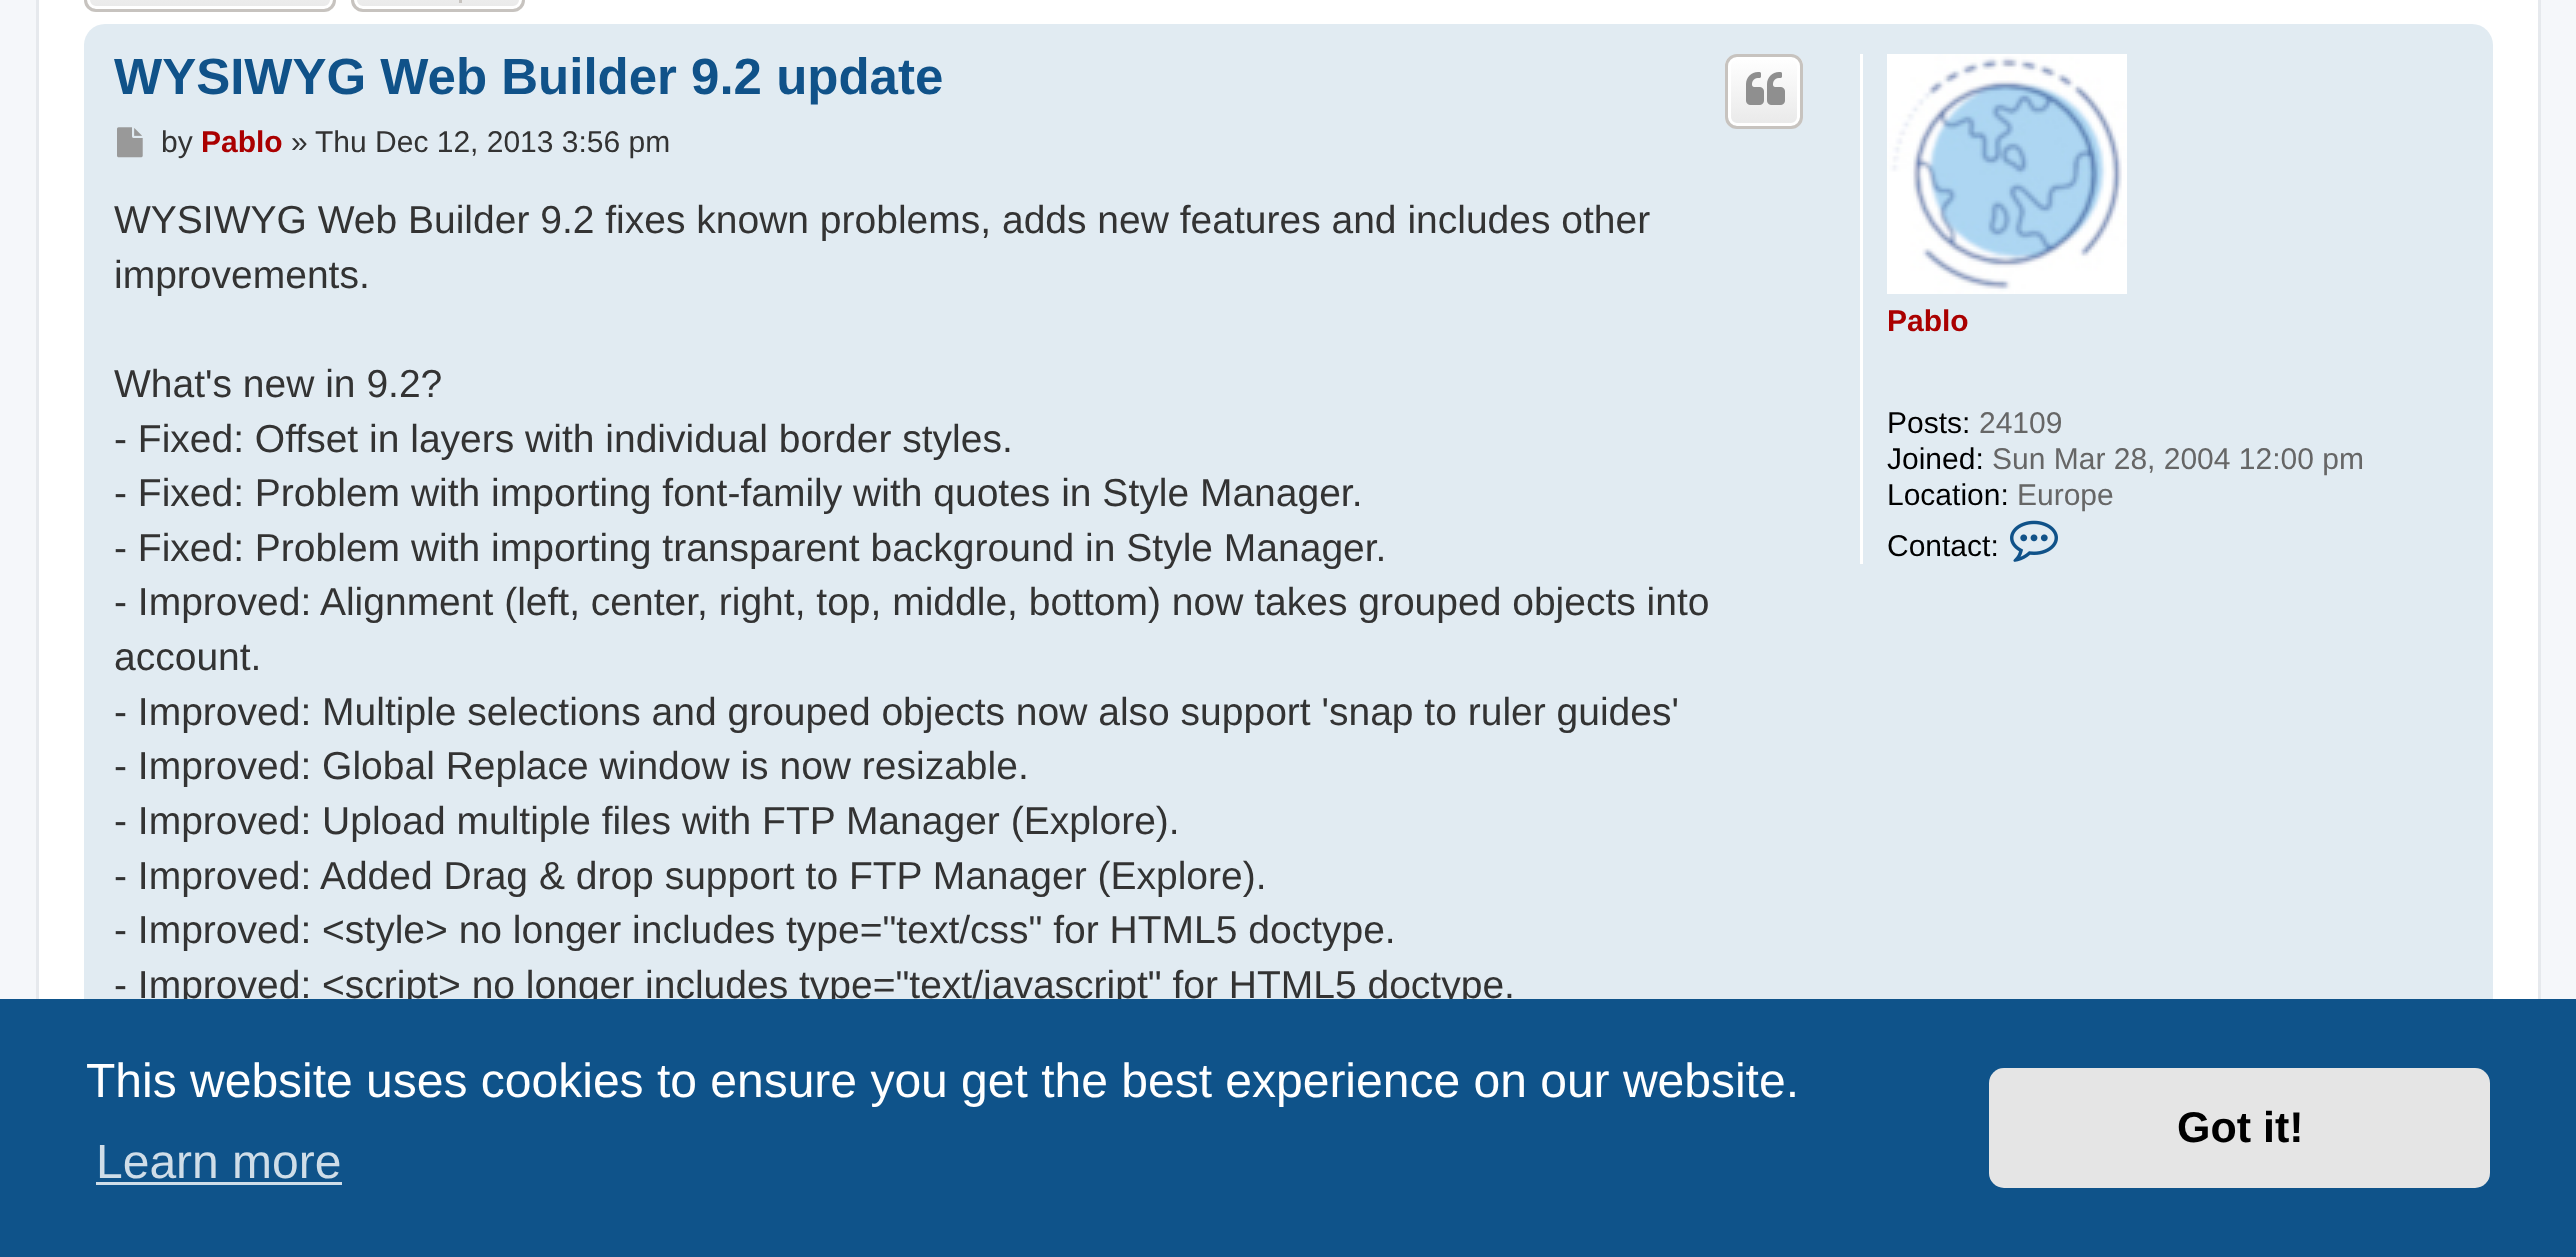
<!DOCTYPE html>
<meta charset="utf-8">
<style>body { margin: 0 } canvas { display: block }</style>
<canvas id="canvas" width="2576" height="1257"></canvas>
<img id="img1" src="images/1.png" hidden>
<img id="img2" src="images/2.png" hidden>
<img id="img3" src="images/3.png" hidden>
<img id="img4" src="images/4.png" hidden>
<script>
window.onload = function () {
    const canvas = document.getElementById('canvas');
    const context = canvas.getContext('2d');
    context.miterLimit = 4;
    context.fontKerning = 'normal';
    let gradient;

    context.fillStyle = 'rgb(245, 247, 250)';
    context.fillRect(0, 0, 2576, 1257);
    context.fillStyle = 'rgb(255, 255, 255)';
    context.fillRect(39, 0, 2499, 999);
    context.strokeStyle = 'rgb(230, 233, 237)';
    context.lineWidth = 3;
    context.strokeRect(37.5, -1.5, 2502, 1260);
    context.save();
    context.beginPath();
    context.roundRect(84, -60, 252, 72, 12);
    context.clip();
    gradient = context.createLinearGradient(210, -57, 210, 9);
    gradient.addColorStop(0, 'rgb(255, 255, 255)');
    gradient.addColorStop(1, 'rgb(233, 233, 233)');
    context.fillStyle = gradient;
    context.fillRect(84, 0, 252, 9);
    context.restore();
    context.beginPath();
    context.roundRect(88.5, -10.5, 243, 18, 7.5);
    context.strokeStyle = 'rgb(255, 255, 255)';
    context.stroke();
    context.beginPath();
    context.roundRect(85.5, -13.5, 249, 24, 10.5);
    context.strokeStyle = 'rgb(199, 195, 191)';
    context.stroke();
    context.save();
    context.beginPath();
    context.roundRect(351, -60, 174, 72, 12);
    context.clip();
    gradient = context.createLinearGradient(438, -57, 438, 9);
    gradient.addColorStop(0, 'rgb(255, 255, 255)');
    gradient.addColorStop(1, 'rgb(233, 233, 233)');
    context.fillStyle = gradient;
    context.fillRect(351, 0, 174, 9);
    context.restore();
    context.beginPath();
    context.roundRect(355.5, -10.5, 165, 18, 7.5);
    context.strokeStyle = 'rgb(255, 255, 255)';
    context.stroke();
    context.beginPath();
    context.roundRect(352.5, -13.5, 171, 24, 10.5);
    context.strokeStyle = 'rgb(199, 195, 191)';
    context.stroke();
    context.fillStyle = 'rgb(199, 195, 191)';
    context.fillRect(459, 0, 3, 3);
    context.fillStyle = 'rgb(225, 235, 242)';
    context.beginPath();
    context.roundRect(84, 24, 2409, 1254, 21);
    context.fill();
    context.save();
    context.beginPath();
    context.roundRect(1725, 54, 78, 75, 12);
    context.clip();
    gradient = context.createLinearGradient(1764, 57, 1764, 126);
    gradient.addColorStop(0, 'rgb(255, 255, 255)');
    gradient.addColorStop(1, 'rgb(233, 233, 233)');
    context.fillStyle = gradient;
    context.fillRect(1725, 57, 78, 69);
    context.restore();
    context.beginPath();
    context.roundRect(1729.5, 58.5, 69, 66, 7.5);
    context.strokeStyle = 'rgb(255, 255, 255)';
    context.stroke();
    context.beginPath();
    context.roundRect(1726.5, 55.5, 75, 72, 10.5);
    context.strokeStyle = 'rgb(199, 195, 191)';
    context.stroke();
    context.drawImage(document.getElementById('img1'), 1746, 72, 39, 33);
    context.drawImage(document.getElementById('img2'), 117, 127, 26, 31);
    context.fillStyle = 'rgb(255, 255, 255)';
    context.fillRect(1860, 54, 3, 510);
    context.drawImage(document.getElementById('img3'), 1887, 54, 240, 240);
    context.drawImage(document.getElementById('img4'), 2010, 520, 48, 42);
    context.font = 'bold 51px Liberation Sans';
    context.fillStyle = 'rgb(16, 82, 137)';
    context.fillText('WYSIWYG Web Builder 9.2 update', 114, 94);
    context.font = '30px Liberation Sans';
    context.fillStyle = 'rgb(51, 51, 51)';
    context.fillText('by', 161, 152);
    context.font = 'bold 30px Liberation Sans';
    context.fillStyle = 'rgb(170, 0, 0)';
    context.fillText('Pablo', 201, 152);
    context.font = '30px Liberation Sans';
    context.fillStyle = 'rgb(51, 51, 51)';
    context.fillText('»', 291, 152);
    context.fillText('Thu Dec 12, 2013 3:56 pm', 315, 152);
    context.font = '39px Liberation Sans';
    context.fillText('WYSIWYG Web Builder 9.2 fixes known problems, adds new features and includes other', 114, 233);
    context.fillText('improvements.', 114, 288);
    context.fillText('What\'s new in 9.2?', 114, 397);
    context.fillText('- Fixed: Offset in layers with individual border styles.', 114, 452);
    context.fillText('- Fixed: Problem with importing font-family with quotes in Style Manager.', 114, 506);
    context.fillText('- Fixed: Problem with importing transparent background in Style Manager.', 114, 561);
    context.fillText('- Improved: Alignment (left, center, right, top, middle, bottom) now takes grouped objects into', 114, 615);
    context.fillText('account.', 114, 670);
    context.fillText('- Improved: Multiple selections and grouped objects now also support \'snap to ruler guides\'', 114, 725);
    context.fillText('- Improved: Global Replace window is now resizable.', 114, 779);
    context.fillText('- Improved: Upload multiple files with FTP Manager (Explore).', 114, 834);
    context.fillText('- Improved: Added Drag & drop support to FTP Manager (Explore).', 114, 889);
    context.fillText('- Improved: <style> no longer includes type="text/css" for HTML5 doctype.', 114, 943);
    context.fillText('- Improved: <script> no longer includes type="text/javascript" for HTML5 doctype.', 114, 998);
    context.font = 'bold 30px Liberation Sans';
    context.fillStyle = 'rgb(170, 0, 0)';
    context.fillText('Pablo', 1887, 331);
    context.font = '30px Liberation Sans';
    context.fillStyle = 'rgb(0, 0, 0)';
    context.fillText('Posts:', 1887, 433);
    context.fillStyle = 'rgb(102, 102, 102)';
    context.fillText('24109', 1979, 433);
    context.fillStyle = 'rgb(0, 0, 0)';
    context.fillText('Joined:', 1887, 469);
    context.fillStyle = 'rgb(102, 102, 102)';
    context.fillText('Sun Mar 28, 2004 12:00 pm', 1992, 469);
    context.fillStyle = 'rgb(0, 0, 0)';
    context.fillText('Location:', 1887, 505);
    context.fillStyle = 'rgb(102, 102, 102)';
    context.fillText('Europe', 2017, 505);
    context.fillStyle = 'rgb(0, 0, 0)';
    context.fillText('Contact:', 1887, 556);
    context.fillStyle = 'rgb(15, 83, 138)';
    context.fillRect(0, 999, 2576, 258);
    context.font = '48px Liberation Sans';
    context.fillStyle = 'rgb(255, 255, 255)';
    context.fillText('This website uses cookies to ensure you get the best experience on our website.', 86, 1097);
    context.fillStyle = 'rgb(207, 221, 232)';
    context.fillText('Learn more', 96, 1178);
    context.fillRect(96, 1182, 246, 3);
    context.fillStyle = 'rgb(229, 229, 229)';
    context.beginPath();
    context.roundRect(1989, 1068, 501, 120, 15);
    context.fill();
    context.font = 'bold 43px Liberation Sans';
    context.fillStyle = 'rgb(0, 0, 0)';
    context.fillText('Got it!', 2177, 1142);
};
</script>
